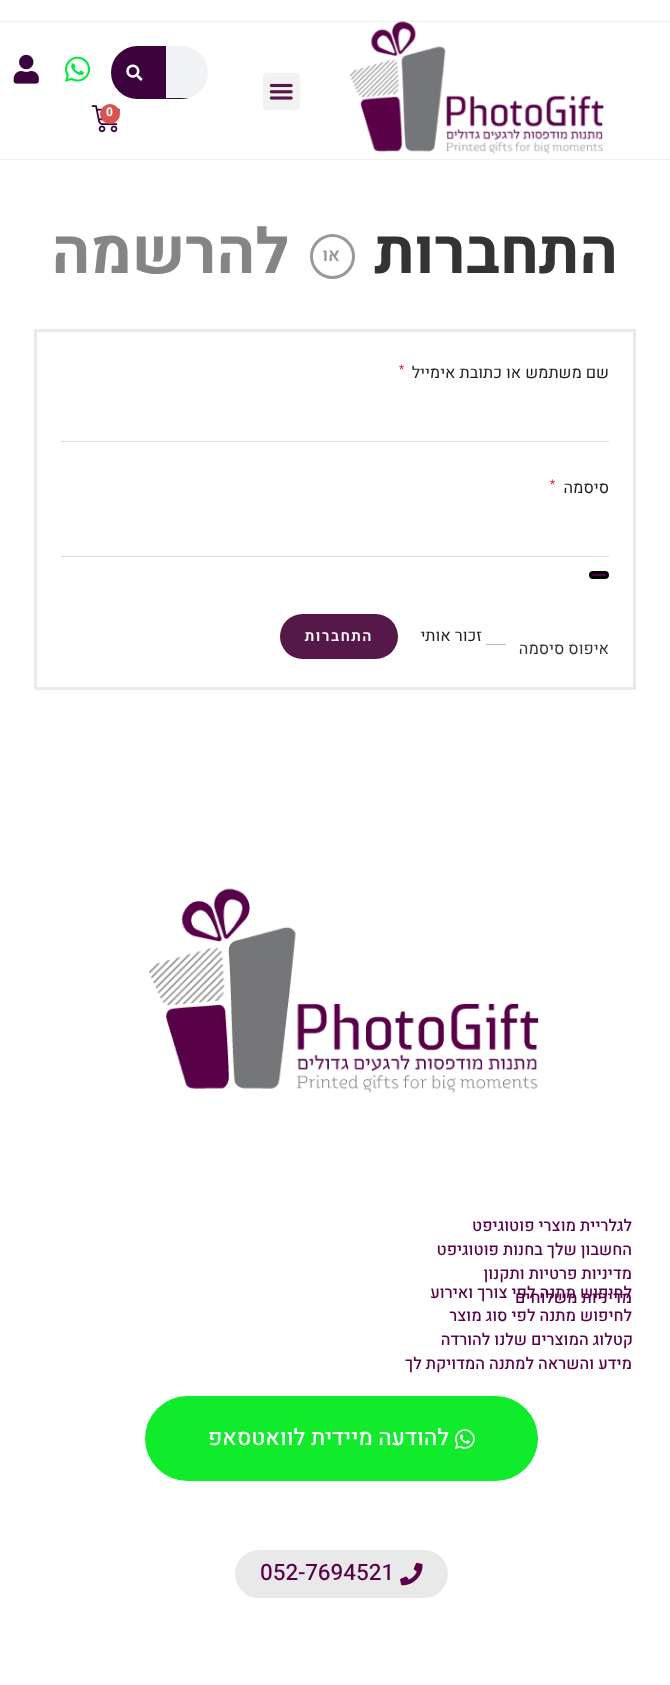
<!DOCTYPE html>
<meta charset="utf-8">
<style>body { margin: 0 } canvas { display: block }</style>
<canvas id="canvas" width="670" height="1685"></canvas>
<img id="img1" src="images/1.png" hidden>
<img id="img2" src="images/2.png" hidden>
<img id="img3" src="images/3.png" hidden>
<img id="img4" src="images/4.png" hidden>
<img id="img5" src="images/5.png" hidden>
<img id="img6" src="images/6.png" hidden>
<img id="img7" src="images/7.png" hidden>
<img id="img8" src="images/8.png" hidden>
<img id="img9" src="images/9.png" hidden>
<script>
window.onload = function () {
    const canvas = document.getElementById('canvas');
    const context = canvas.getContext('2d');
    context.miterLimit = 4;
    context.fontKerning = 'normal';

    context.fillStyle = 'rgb(255, 255, 255)';
    context.fillRect(0, 0, 670, 1685);
    context.fillStyle = 'rgb(241, 241, 241)';
    context.fillRect(0, 21, 670, 1);
    context.fillRect(0, 159, 670, 1);
    context.drawImage(document.getElementById('img1'), 349, 21, 255, 134);
    context.fillStyle = 'rgb(242, 242, 242)';
    context.beginPath();
    context.roundRect(263, 73, 37, 37, 4);
    context.fill();
    context.drawImage(document.getElementById('img2'), 269, 83, 24, 17);
    context.fillStyle = 'rgb(241, 242, 243)';
    context.beginPath();
    context.roundRect(108.5, 43.5, 102, 58, 29);
    context.fill();
    context.strokeStyle = 'rgb(255, 255, 255)';
    context.lineWidth = 5;
    context.stroke();
    context.save();
    context.beginPath();
    context.roundRect(111, 46, 97, 53, 26.5);
    context.clip();
    context.fillStyle = 'rgb(30, 30, 30)';
    context.fillRect(166, 98, 23, 1);
    context.restore();
    context.fillStyle = 'rgb(60, 2, 61)';
    context.beginPath();
    context.roundRect(111, 46, 55, 53, [26.5, 0, 0, 26.5]);
    context.fill();
    context.drawImage(document.getElementById('img3'), 126, 64, 17, 17);
    context.drawImage(document.getElementById('img4'), 65, 56, 26, 26);
    context.drawImage(document.getElementById('img5'), 13, 54, 26, 30);
    context.drawImage(document.getElementById('img6'), 91, 105, 29, 28);
    context.fillStyle = 'rgb(217, 83, 79)';
    context.beginPath();
    context.arc(110, 114, 10, 0, 2 * Math.PI);
    context.fill();
    context.beginPath();
    context.arc(332.5, 256.5, 21, 0, 2 * Math.PI);
    context.strokeStyle = 'rgb(153, 153, 153)';
    context.lineWidth = 3;
    context.stroke();
    context.strokeStyle = 'rgb(234, 234, 234)';
    context.strokeRect(35.5, 330.5, 599, 358);
    context.fillStyle = 'rgb(221, 221, 221)';
    context.fillRect(61, 441, 548, 1);
    context.fillRect(61, 556, 548, 1);
    context.fillStyle = 'rgb(89, 0, 72)';
    context.beginPath();
    context.roundRect(590.5, 572.5, 17, 5, 2.5);
    context.fill();
    context.strokeStyle = 'rgb(0, 0, 0)';
    context.stroke();
    context.fillStyle = 'rgb(187, 187, 187)';
    context.fillRect(486, 644, 20, 1);
    context.fillStyle = 'rgb(85, 24, 72)';
    context.beginPath();
    context.roundRect(280, 614, 118, 45, 22.5);
    context.fill();
    context.drawImage(document.getElementById('img7'), 149, 888, 390, 205);
    context.fillStyle = 'rgb(16, 236, 44)';
    context.beginPath();
    context.roundRect(145, 1396, 393, 85, 42.5);
    context.fill();
    context.drawImage(document.getElementById('img8'), 455, 1429, 20, 20);
    context.fillStyle = 'rgb(233, 233, 233)';
    context.beginPath();
    context.roundRect(235, 1550, 213, 48, 24);
    context.fill();
    context.drawImage(document.getElementById('img9'), 400, 1562, 23, 24);
    context.font = 'bold 12px Heebo';
    context.fillStyle = 'rgb(255, 255, 255)';
    context.fillText('0', 106, 116);
    context.direction = 'rtl';
    context.font = 'bold 62.5px Heebo';
    context.fillStyle = 'rgb(51, 51, 51)';
    context.fillText('התחברות', 618, 273);
    context.font = '600 18px Heebo';
    context.fillStyle = 'rgb(153, 153, 153)';
    context.fillText('או', 340, 261);
    context.font = 'bold 62.5px Heebo';
    context.fillStyle = 'rgb(133, 133, 133)';
    context.fillText('להרשמה', 289, 273);
    context.font = '16.25px Heebo';
    context.fillStyle = 'rgb(30, 30, 30)';
    context.fillText('שם משתמש או כתובת אימייל', 609, 378);
    context.direction = 'ltr';
    context.font = '12px Heebo';
    context.fillStyle = 'rgb(228, 34, 52)';
    context.fillText('*', 399, 373);
    context.fillText('*', 550, 488);
    context.direction = 'rtl';
    context.font = '16.25px Heebo';
    context.fillStyle = 'rgb(30, 30, 30)';
    context.fillText('סיסמה', 609, 493);
    context.fillText('זכור אותי', 482, 641);
    context.letterSpacing = '1.5px';
    context.font = '600 15px Heebo';
    context.fillStyle = 'rgb(255, 255, 255)';
    context.fillText('התחברות', 373, 641);
    context.letterSpacing = '0px';
    context.font = '16.25px Heebo';
    context.fillStyle = 'rgb(51, 51, 51)';
    context.fillText('איפוס סיסמה', 609, 654);
    context.font = '500 16.25px Heebo';
    context.fillStyle = 'rgb(89, 0, 72)';
    context.fillText('לגלריית מוצרי פוטוגיפט', 632, 1231);
    context.fillText('החשבון שלך בחנות פוטוגיפט', 632, 1255);
    context.fillText('מדיניות פרטיות ותקנון', 632, 1279);
    context.fillText('מדיניות משלוחים', 632, 1303);
    context.fillText('לחיפוש מתנה לפי צורך ואירוע', 632, 1298);
    context.fillText('לחיפוש מתנה לפי סוג מוצר', 632, 1321);
    context.fillText('קטלוג המוצרים שלנו להורדה', 633, 1345);
    context.fillText('מידע והשראה למתנה המדויקת לך', 632, 1369);
    context.font = '500 22.5px Heebo';
    context.fillStyle = 'rgb(255, 255, 255)';
    context.fillText('להודעה מיידית לוואטסאפ', 449, 1445);
    context.direction = 'ltr';
    context.fillStyle = 'rgb(89, 0, 72)';
    context.fillText('052-7694521', 260, 1580);
};
</script>
